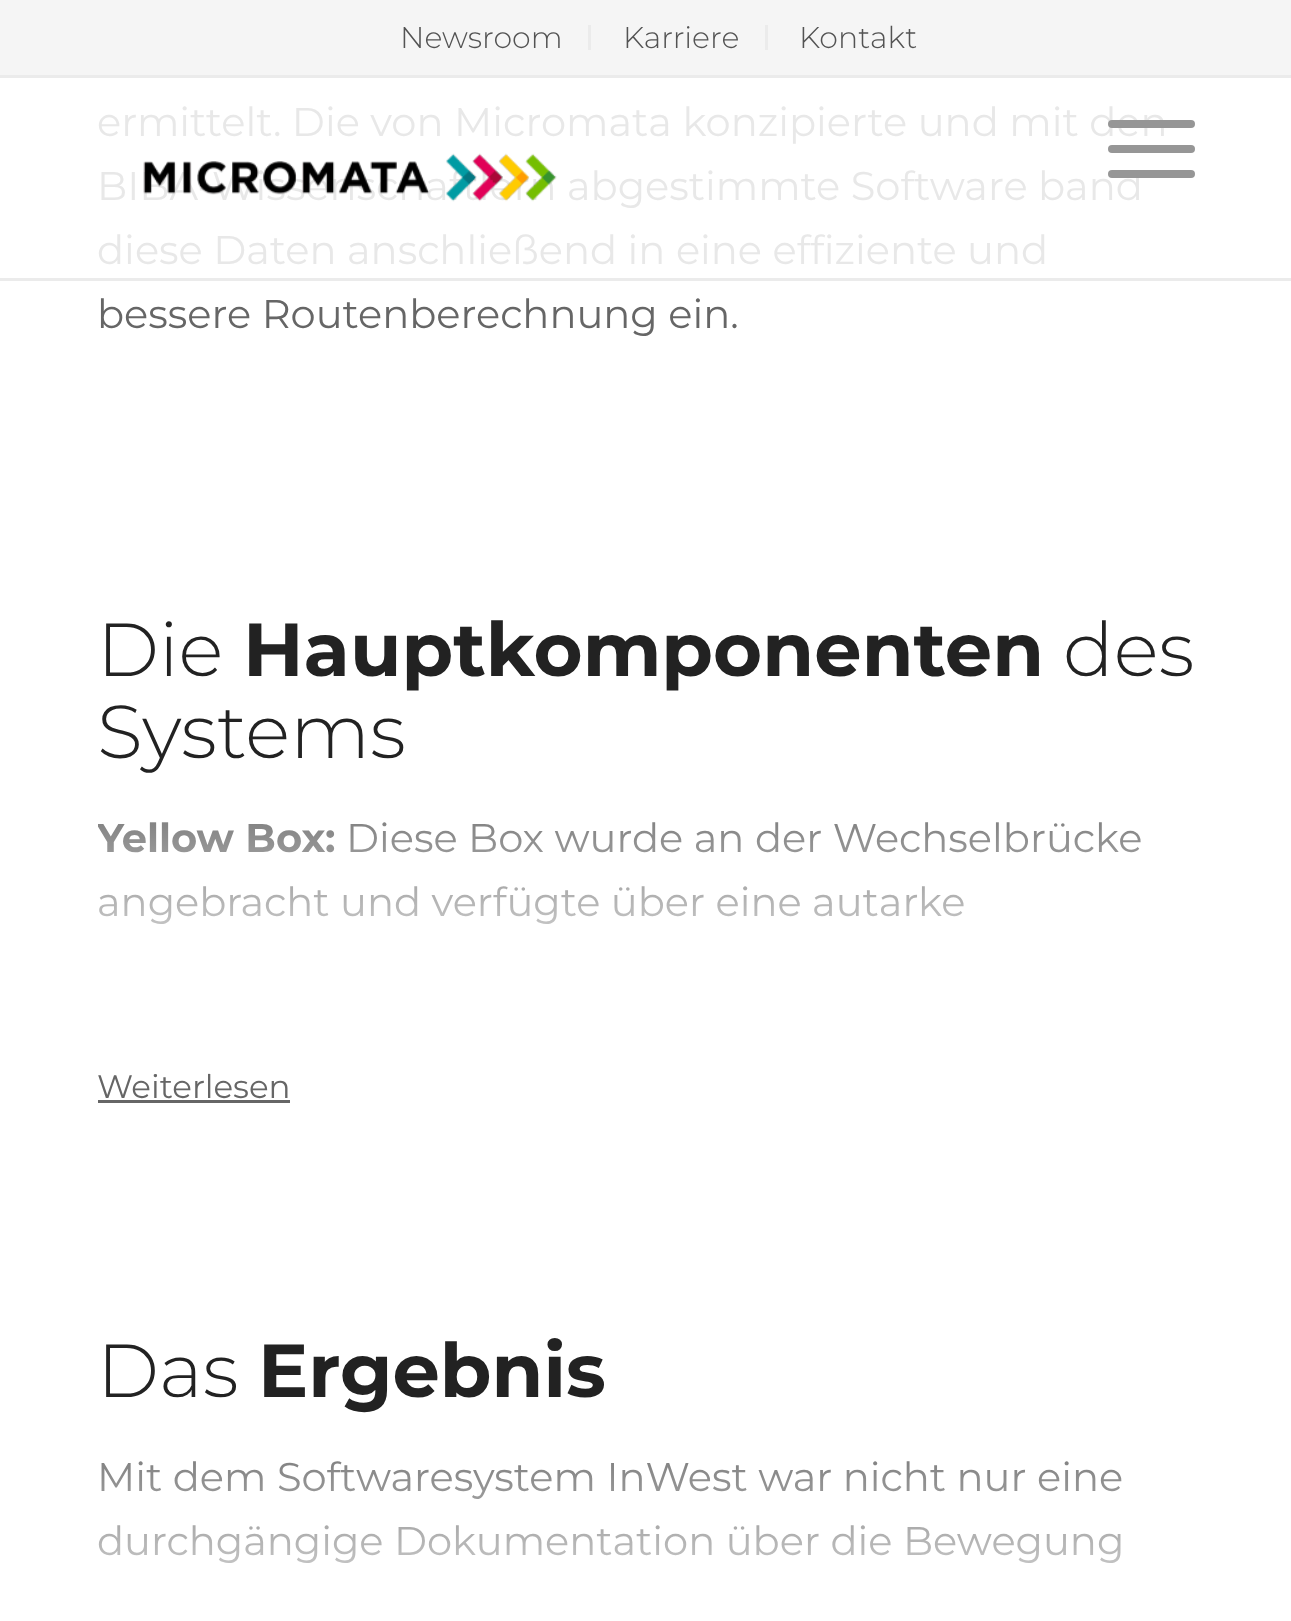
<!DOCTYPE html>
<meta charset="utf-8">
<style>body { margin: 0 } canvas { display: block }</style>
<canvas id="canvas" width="1291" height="1621"></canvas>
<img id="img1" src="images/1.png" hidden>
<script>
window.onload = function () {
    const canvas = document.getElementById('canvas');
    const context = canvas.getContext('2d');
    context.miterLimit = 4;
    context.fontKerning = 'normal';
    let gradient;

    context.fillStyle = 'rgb(255, 255, 255)';
    context.fillRect(0, 0, 1291, 1621);
    context.fillStyle = 'rgb(245, 245, 245)';
    context.fillRect(0, 0, 1291, 75);
    context.fillStyle = 'rgb(235, 235, 235)';
    context.fillRect(0, 75, 1291, 3);
    context.fillRect(588, 25, 3, 25);
    context.fillRect(765, 25, 3, 25);
    context.fillRect(0, 278, 1291, 3);
    context.fillStyle = 'rgb(150, 150, 150)';
    context.beginPath();
    context.roundRect(1108, 145, 87, 8, 4);
    context.fill();
    context.fillStyle = 'rgb(102, 102, 102)';
    context.fillRect(98, 1100, 192, 3);
    context.font = '300 30px Montserrat';
    context.fillStyle = 'rgb(83, 83, 83)';
    context.fillText('Newsroom', 400, 48);
    context.fillText('Karriere', 623, 48);
    context.fillText('Kontakt', 799, 48);
    context.font = '40px Montserrat';
    context.fillStyle = 'rgb(232, 232, 232)';
    context.fillText('ermittelt. Die von Micromata konzipierte und mit den', 97, 136);
    context.fillStyle = 'rgb(150, 150, 150)';
    context.beginPath();
    context.roundRect(1108, 120, 87, 8, 4);
    context.fill();
    context.fillStyle = 'rgb(232, 232, 232)';
    context.fillText('BIBA-Wissenschaftlern abgestimmte Software band', 97, 200);
    context.fillStyle = 'rgb(150, 150, 150)';
    context.beginPath();
    context.roundRect(1108, 170, 87, 8, 4);
    context.fill();
    context.drawImage(document.getElementById('img1'), 143, 153, 414, 49);
    context.fillStyle = 'rgb(232, 232, 232)';
    context.fillText('diese Daten anschließend in eine effiziente und', 97, 264);
    context.fillStyle = 'rgb(102, 102, 102)';
    context.fillText('bessere Routenberechnung ein.', 97, 328);
    context.font = '300 75px Montserrat';
    context.fillStyle = 'rgb(34, 34, 34)';
    context.fillText('Die', 97, 676);
    context.font = 'bold 75px Montserrat';
    context.fillText('Hauptkomponenten', 243, 676);
    context.font = '300 75px Montserrat';
    context.fillText('des', 1063, 676);
    context.fillText('Systems', 97, 758);
    context.save();
    context.beginPath();
    context.rect(98, 773, 1097, 250);
    context.clip();
    context.font = 'bold 40px Montserrat';
    context.fillStyle = 'rgb(102, 102, 102)';
    context.fillText('Yellow Box:', 97, 852);
    context.restore();
    context.font = '40px Montserrat';
    context.fillStyle = 'rgb(102, 102, 102)';
    context.fillText('Diese Box wurde an der Wechselbrücke', 346, 852);
    context.fillText('angebracht und verfügte über eine autarke', 97, 916);
    gradient = context.createLinearGradient(646, 773, 646, 1023);
    gradient.addColorStop(0, 'rgba(255, 255, 255, 0)');
    gradient.addColorStop(1, 'rgb(255, 255, 255)');
    context.fillStyle = gradient;
    context.fillRect(98, 822, 1043, 102);
    context.font = '32.5px Montserrat';
    context.fillStyle = 'rgb(102, 102, 102)';
    context.fillText('Weiterlesen', 97, 1098);
    context.font = '300 75px Montserrat';
    context.fillStyle = 'rgb(34, 34, 34)';
    context.fillText('Das', 97, 1397);
    context.font = 'bold 75px Montserrat';
    context.fillText('Ergebnis', 258, 1397);
    context.font = '40px Montserrat';
    context.fillStyle = 'rgb(102, 102, 102)';
    context.fillText('Mit dem Softwaresystem InWest war nicht nur eine', 97, 1491);
    context.fillText('durchgängige Dokumentation über die Bewegung', 97, 1555);
    gradient = context.createLinearGradient(646, 1413, 646, 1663);
    gradient.addColorStop(0, 'rgba(255, 255, 255, 0)');
    gradient.addColorStop(1, 'rgb(255, 255, 255)');
    context.fillStyle = gradient;
    context.fillRect(98, 1461, 1024, 102);
};
</script>
